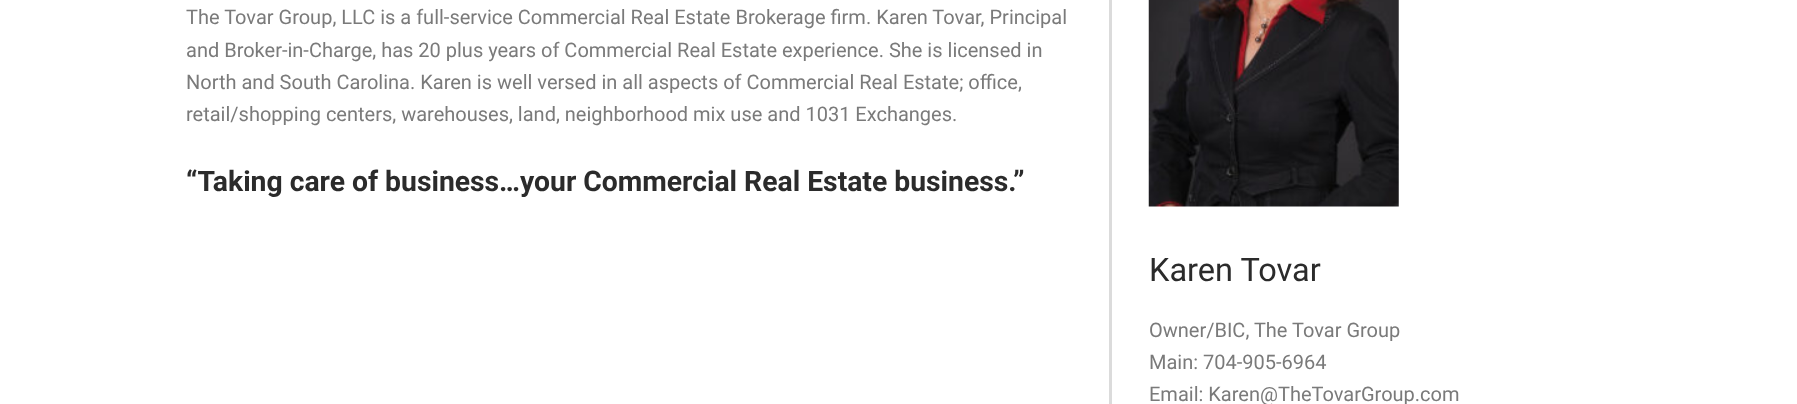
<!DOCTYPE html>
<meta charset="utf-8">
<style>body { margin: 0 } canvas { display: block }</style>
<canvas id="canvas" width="1797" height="404"></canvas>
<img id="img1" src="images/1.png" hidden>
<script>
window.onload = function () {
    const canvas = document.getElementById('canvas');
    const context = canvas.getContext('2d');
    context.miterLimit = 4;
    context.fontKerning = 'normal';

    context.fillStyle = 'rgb(255, 255, 255)';
    context.fillRect(0, 0, 1797, 404);
    context.fillStyle = 'rgb(219, 219, 219)';
    context.fillRect(1109, 0, 3, 404);
    context.drawImage(document.getElementById('img1'), 1148, 0, 251, 207);
    context.font = '20px Roboto';
    context.fillStyle = 'rgb(122, 122, 122)';
    context.fillText('The Tovar Group, LLC is a full-service Commercial Real Estate Brokerage firm. Karen Tovar, Principal', 186, 24);
    context.fillText('and Broker-in-Charge, has 20 plus years of Commercial Real Estate experience. She is licensed in', 186, 57);
    context.fillText('North and South Carolina. Karen is well versed in all aspects of Commercial Real Estate; office,', 186, 89);
    context.fillText('retail/shopping centers, warehouses, land, neighborhood mix use and 1031 Exchanges.', 186, 121);
    context.font = 'bold 28.3px Roboto';
    context.fillStyle = 'rgb(43, 43, 43)';
    context.fillText('“Taking care of business…your Commercial Real Estate business.”', 186, 191);
    context.font = '32.5px Roboto';
    context.fillText('Karen Tovar', 1149, 281);
    context.font = '20px Roboto';
    context.fillStyle = 'rgb(122, 122, 122)';
    context.fillText('Owner/BIC, The Tovar Group', 1149, 337);
    context.fillText('Main: 704-905-6964', 1149, 369);
    context.fillText('Email: Karen@TheTovarGroup.com', 1149, 401);
};
</script>
